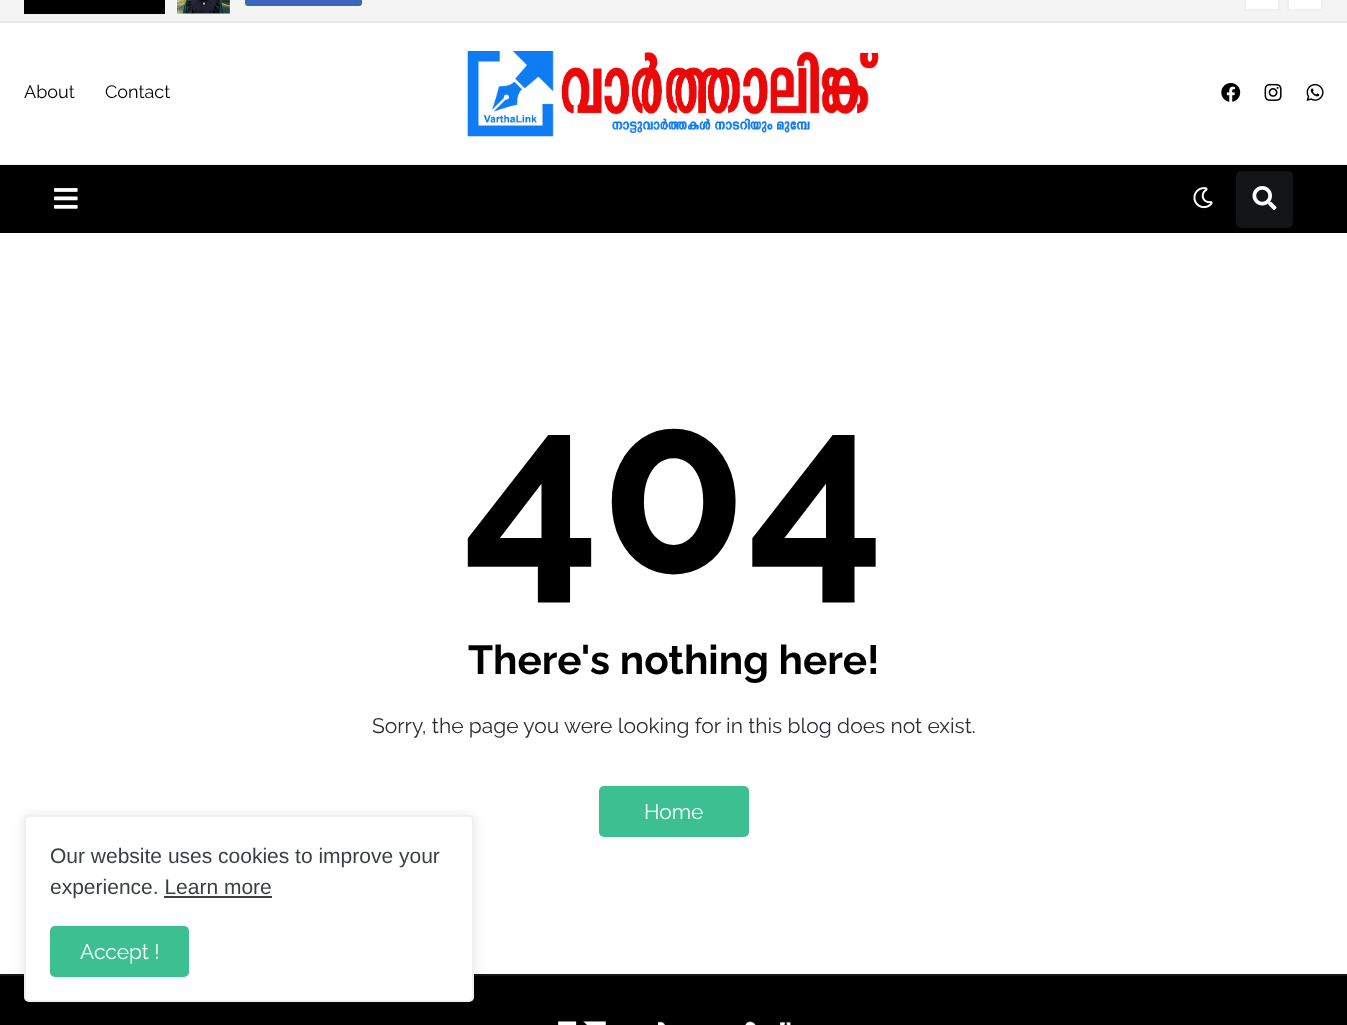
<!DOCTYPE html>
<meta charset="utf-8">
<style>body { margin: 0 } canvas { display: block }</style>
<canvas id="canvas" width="1347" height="1025"></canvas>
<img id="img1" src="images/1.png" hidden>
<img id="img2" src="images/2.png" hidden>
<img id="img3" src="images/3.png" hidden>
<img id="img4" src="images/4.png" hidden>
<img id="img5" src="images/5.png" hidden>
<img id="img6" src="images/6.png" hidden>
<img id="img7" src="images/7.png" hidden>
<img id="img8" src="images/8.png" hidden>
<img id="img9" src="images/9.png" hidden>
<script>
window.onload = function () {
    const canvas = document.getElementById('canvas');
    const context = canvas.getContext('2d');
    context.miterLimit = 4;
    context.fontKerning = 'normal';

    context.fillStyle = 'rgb(255, 255, 255)';
    context.fillRect(0, 0, 1347, 1025);
    context.fillStyle = 'rgb(244, 244, 244)';
    context.fillRect(0, 0, 1347, 21);
    context.fillStyle = 'rgb(232, 232, 232)';
    context.fillRect(0, 21, 1347, 2);
    context.fillStyle = 'rgb(0, 0, 0)';
    context.fillRect(24, 0, 141, 14);
    context.fillStyle = 'rgb(233, 235, 236)';
    context.fillRect(177, 0, 53, 14);
    context.drawImage(document.getElementById('img1'), 177, 0, 53, 14);
    context.fillStyle = 'rgb(58, 103, 187)';
    context.beginPath();
    context.roundRect(245, -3, 117, 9, 3);
    context.fill();
    context.fillStyle = 'rgb(255, 255, 255)';
    context.beginPath();
    context.rect(1245, -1, 34, 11);
    context.fill();
    context.strokeStyle = 'rgb(240, 240, 240)';
    context.lineWidth = 2;
    context.stroke();
    context.beginPath();
    context.rect(1288, -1, 34, 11);
    context.fill();
    context.stroke();
    context.fillStyle = 'rgb(240, 240, 240)';
    context.fillRect(0, 164, 1347, 1);
    context.drawImage(document.getElementById('img2'), 467, 51, 412, 86);
    context.drawImage(document.getElementById('img3'), 1221, 83, 20, 19);
    context.drawImage(document.getElementById('img4'), 1264, 83, 18, 18);
    context.drawImage(document.getElementById('img5'), 1306, 83, 18, 18);
    context.fillStyle = 'rgb(0, 0, 0)';
    context.fillRect(0, 165, 1347, 68);
    context.drawImage(document.getElementById('img6'), 54, 188, 24, 21);
    context.drawImage(document.getElementById('img7'), 1193, 187, 20, 22);
    context.fillStyle = 'rgb(19, 20, 21)';
    context.beginPath();
    context.roundRect(1236, 171, 57, 57, 5);
    context.fill();
    context.drawImage(document.getElementById('img8'), 1252, 186, 25, 24);
    context.fillStyle = 'rgb(60, 192, 145)';
    context.beginPath();
    context.roundRect(599, 786, 150, 51, 5);
    context.fill();
    context.fillStyle = 'rgb(0, 0, 0)';
    context.fillRect(0, 976, 1347, 49);
    context.fillStyle = 'rgb(23, 23, 23)';
    context.fillRect(0, 974, 1347, 2);
    context.fillStyle = 'rgba(0, 0, 0, 0.1)';
    context.filter = 'blur(6px)';
    context.beginPath();
    context.roundRect(24, 816, 450, 188, 5);
    context.fill();
    context.filter = 'none';
    context.fillStyle = 'rgb(255, 255, 255)';
    context.beginPath();
    context.roundRect(24, 815, 450, 187, 5);
    context.fill();
    context.beginPath();
    context.roundRect(25, 816, 448, 185, 4);
    context.strokeStyle = 'rgba(155, 155, 155, 0.15)';
    context.stroke();
    context.fillStyle = 'rgb(60, 64, 67)';
    context.fillRect(164, 896, 108, 2);
    context.fillStyle = 'rgb(60, 192, 145)';
    context.beginPath();
    context.roundRect(50, 926, 139, 51, 5);
    context.fill();
    context.drawImage(document.getElementById('img9'), 558, 1021, 233, 4);
    context.font = '18px Raleway';
    context.fillStyle = 'rgb(0, 0, 0)';
    context.fillText('About', 24, 98);
    context.fillText('Contact', 105, 98);
    context.font = 'bold 240px Raleway';
    context.fillText('404', 463, 572);
    context.font = 'bold 40.5px Raleway';
    context.fillText('There\'s nothing here!', 468, 674);
    context.font = '21px Raleway';
    context.fillStyle = 'rgb(47, 44, 50)';
    context.fillText('Sorry, the page you were looking for in this blog does not exist.', 372, 733);
    context.fillStyle = 'rgb(255, 255, 255)';
    context.fillText('Home', 644, 819);
    context.font = '21px Liberation Sans';
    context.fillStyle = 'rgb(60, 64, 67)';
    context.fillText('Our website uses cookies to improve your', 50, 863);
    context.fillText('experience. Learn more', 50, 894);
    context.font = '21px Raleway';
    context.fillStyle = 'rgb(255, 255, 255)';
    context.fillText('Accept !', 80, 959);
};
</script>
